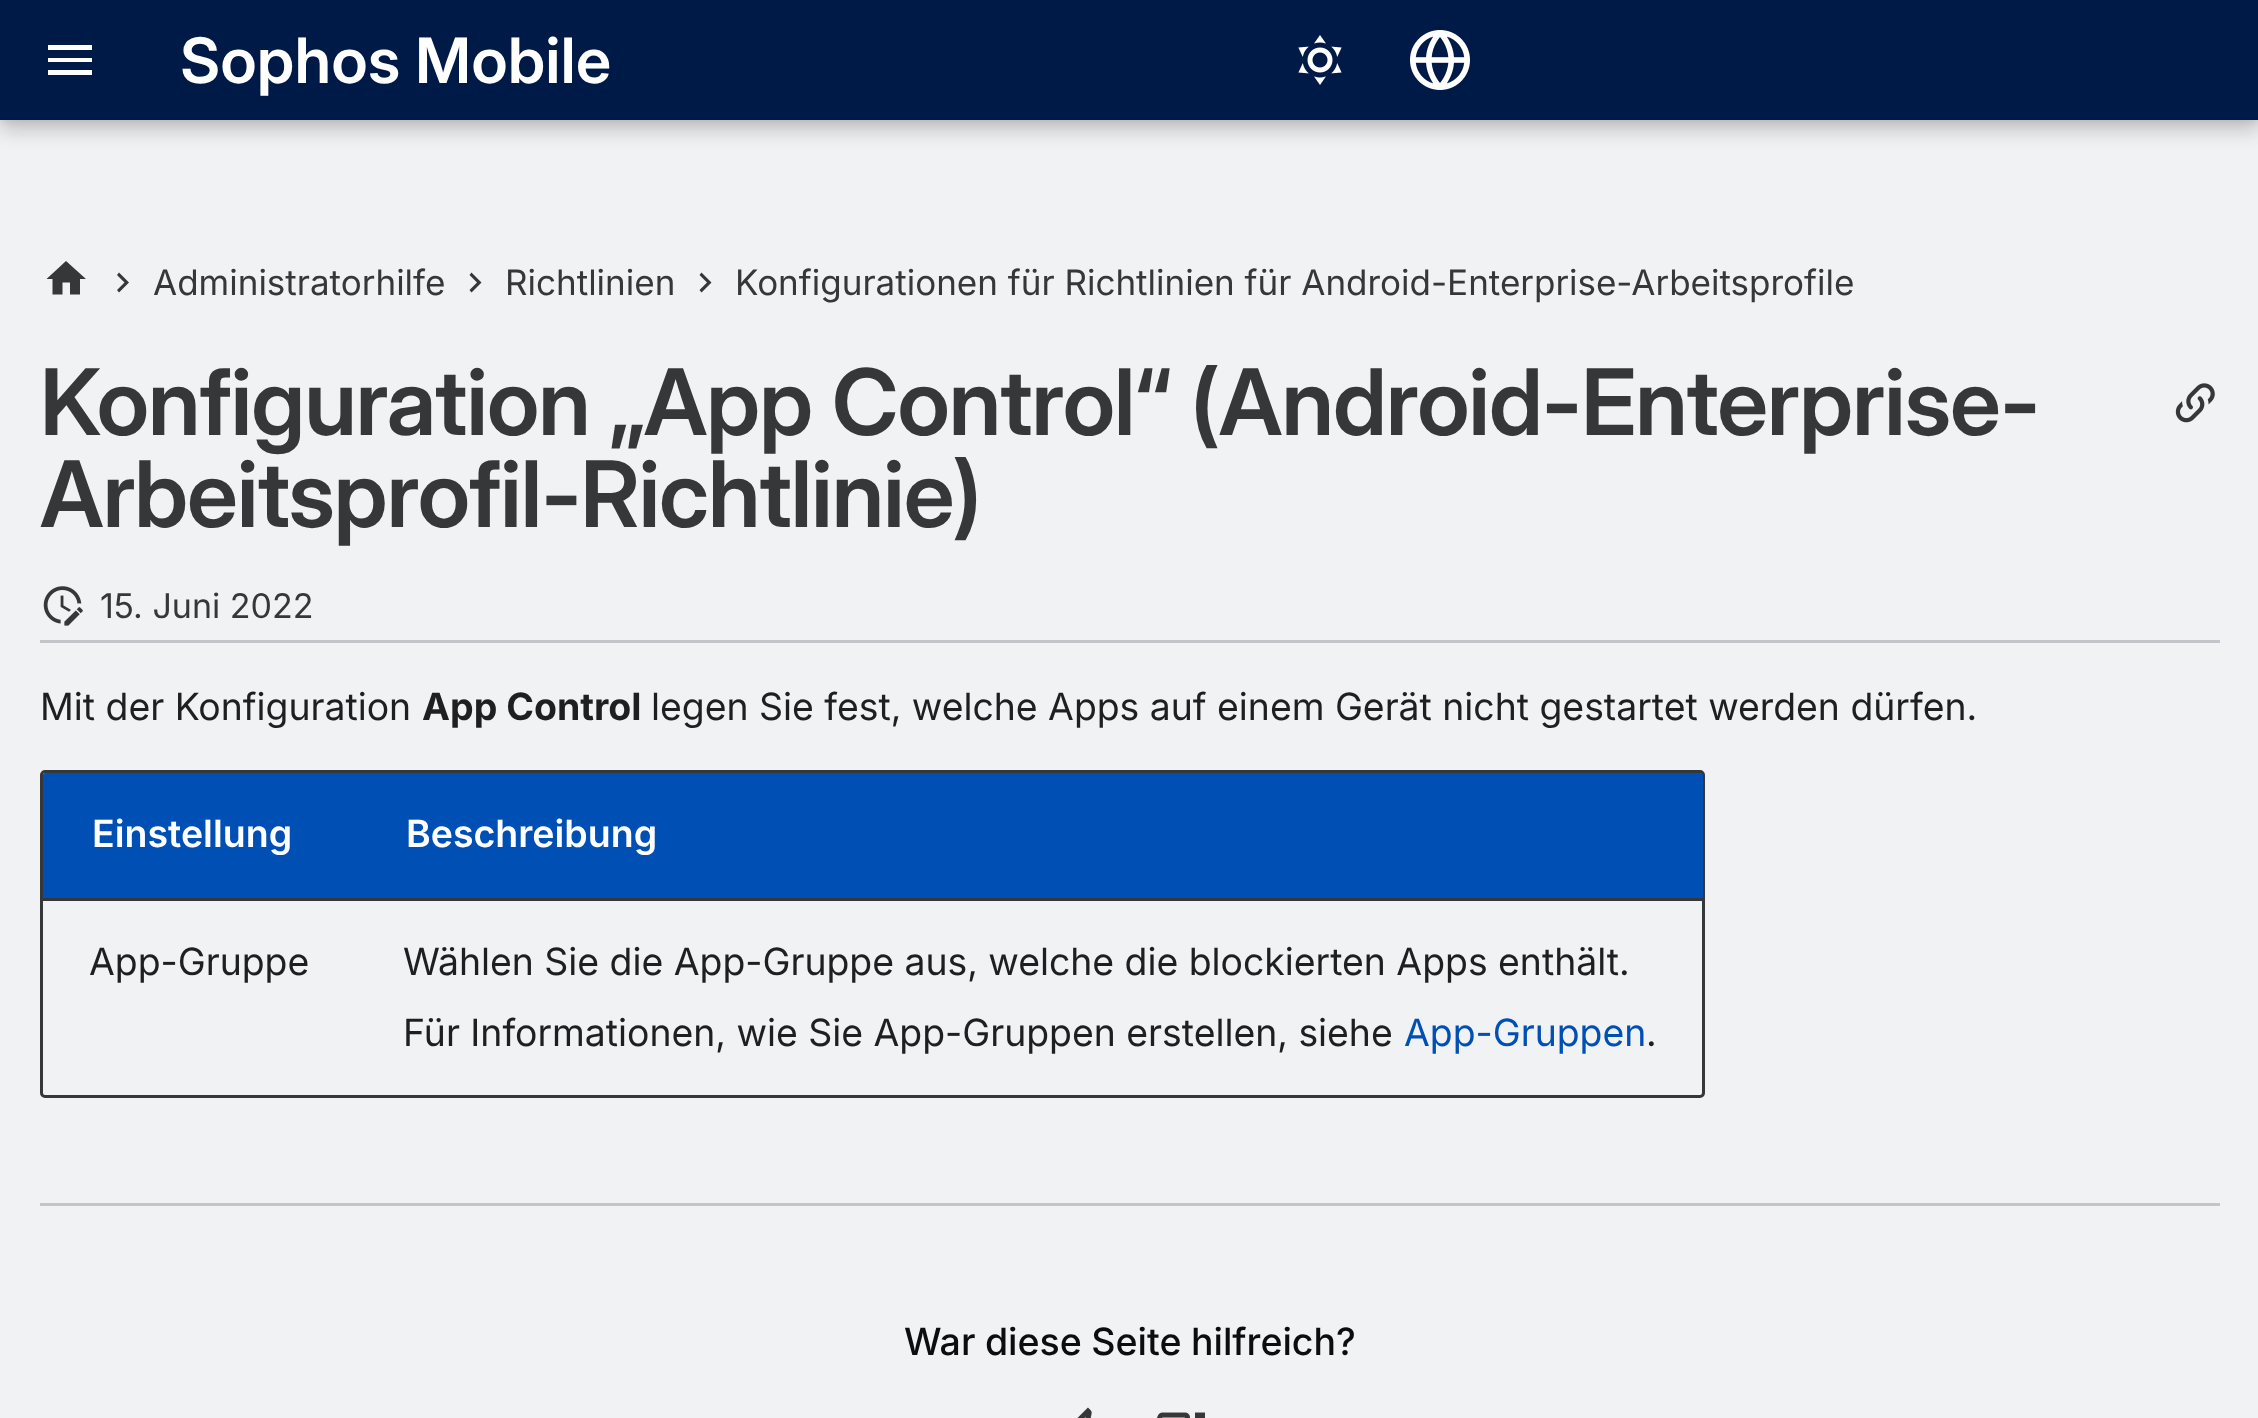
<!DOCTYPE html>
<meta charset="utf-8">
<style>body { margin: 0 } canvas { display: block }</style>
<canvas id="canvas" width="2258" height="1418"></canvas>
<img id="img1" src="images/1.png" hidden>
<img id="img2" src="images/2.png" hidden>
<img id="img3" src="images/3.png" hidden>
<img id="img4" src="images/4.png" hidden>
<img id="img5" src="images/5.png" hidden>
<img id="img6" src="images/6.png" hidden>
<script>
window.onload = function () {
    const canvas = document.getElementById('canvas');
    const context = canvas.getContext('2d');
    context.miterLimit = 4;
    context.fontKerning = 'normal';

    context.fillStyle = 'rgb(240, 242, 244)';
    context.fillRect(0, 0, 2258, 1418);
    context.fillStyle = 'rgba(0, 0, 0, 0.2)';
    context.filter = 'blur(10px)';
    context.beginPath();
    context.rect(0, 10, 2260, 120);
    context.fill();
    context.filter = 'none';
    context.fillStyle = 'rgba(0, 0, 0, 0.1)';
    context.filter = 'blur(5px)';
    context.beginPath();
    context.rect(0, 0, 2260, 120);
    context.fill();
    context.filter = 'none';
    context.fillStyle = 'rgb(0, 26, 71)';
    context.fillRect(0, 0, 2258, 120);
    context.fillStyle = 'rgb(255, 255, 255)';
    context.beginPath();
    context.moveTo(48, 45);
    context.lineTo(92, 45);
    context.lineTo(92, 50);
    context.lineTo(48, 50);
    context.closePath();
    context.moveTo(48, 58);
    context.lineTo(92, 58);
    context.lineTo(92, 62);
    context.lineTo(48, 62);
    context.closePath();
    context.moveTo(48, 70);
    context.lineTo(92, 70);
    context.lineTo(92, 75);
    context.lineTo(48, 75);
    context.closePath();
    context.fill();
    context.drawImage(document.getElementById('img1'), 1298, 35, 44, 50);
    context.drawImage(document.getElementById('img2'), 1410, 30, 60, 60);
    context.fillStyle = 'rgb(54, 55, 56)';
    context.beginPath();
    context.moveTo(62.5, 294.5);
    context.lineTo(62.5, 282.5);
    context.lineTo(70, 282.5);
    context.lineTo(70, 294.5);
    context.lineTo(80, 294.5);
    context.lineTo(80, 279);
    context.lineTo(86, 279);
    context.lineTo(66, 261);
    context.lineTo(46.5, 279);
    context.lineTo(52.5, 279);
    context.lineTo(52.5, 294.5);
    context.closePath();
    context.fill();
    context.beginPath();
    context.moveTo(117, 290);
    context.lineTo(124.5, 282.5);
    context.lineTo(117, 275);
    context.lineTo(119, 272.5);
    context.lineTo(129, 282.5);
    context.lineTo(119, 292.5);
    context.closePath();
    context.fill();
    context.beginPath();
    context.moveTo(469.5, 290);
    context.lineTo(477, 282.5);
    context.lineTo(469.5, 275);
    context.lineTo(471.5, 272.5);
    context.lineTo(481.5, 282.5);
    context.lineTo(471.5, 292.5);
    context.closePath();
    context.fill();
    context.beginPath();
    context.moveTo(699.5, 290);
    context.lineTo(707, 282.5);
    context.lineTo(699.5, 275);
    context.lineTo(701.5, 272.5);
    context.lineTo(711.5, 282.5);
    context.lineTo(701.5, 292.5);
    context.closePath();
    context.fill();
    context.drawImage(document.getElementById('img3'), 2175, 383, 40, 40);
    context.fillStyle = 'rgb(194, 197, 202)';
    context.fillRect(40, 640, 2180, 3);
    context.drawImage(document.getElementById('img4'), 43, 586, 40, 40);
    context.beginPath();
    context.roundRect(41.5, 771.5, 1662, 325, 3.5);
    context.strokeStyle = 'rgb(54, 55, 56)';
    context.lineWidth = 3;
    context.stroke();
    context.fillStyle = 'rgb(0, 79, 181)';
    context.beginPath();
    context.roundRect(43, 773, 315, 125, [2.5, 0, 0, 0]);
    context.fill();
    context.beginPath();
    context.moveTo(46, 773);
    context.bezierCurveTo(44, 773, 43, 774, 43, 776);
    context.lineTo(43, 898);
    context.lineTo(358, 898);
    context.lineTo(358, 773);
    context.closePath();
    context.moveTo(46, 776);
    context.lineTo(46, 895);
    context.lineTo(355, 895);
    context.lineTo(355, 776);
    context.closePath();
    context.fill('evenodd');
    context.beginPath();
    context.roundRect(358, 773, 1345, 125, [0, 2.5, 0, 0]);
    context.fill();
    context.beginPath();
    context.moveTo(358, 773);
    context.lineTo(358, 898);
    context.lineTo(1703, 898);
    context.lineTo(1703, 776);
    context.bezierCurveTo(1703, 774, 1702, 773, 1700, 773);
    context.closePath();
    context.moveTo(361, 776);
    context.lineTo(361, 895);
    context.lineTo(1700, 895);
    context.lineTo(1700, 776);
    context.closePath();
    context.fill('evenodd');
    context.fillStyle = 'rgb(54, 55, 56)';
    context.fillRect(43, 898, 1660, 3);
    context.fillStyle = 'rgb(194, 197, 202)';
    context.fillRect(40, 1203, 2180, 3);
    context.drawImage(document.getElementById('img5'), 1077, 1407, 15, 11);
    context.drawImage(document.getElementById('img6'), 1156, 1412, 49, 6);
    context.font = '600 62.5px "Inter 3"';
    context.fillStyle = 'rgb(255, 255, 255)';
    context.fillText('Sophos Mobile', 180, 83);
    context.font = '35px Inter';
    context.fillStyle = 'rgb(54, 55, 56)';
    context.fillText('Administratorhilfe', 153, 295);
    context.fillText('Richtlinien', 505, 295);
    context.fillText('Konfigurationen für Richtlinien für Android-Enterprise-Arbeitsprofile', 735, 295);
    context.letterSpacing = '-0.9px';
    context.font = '600 91.7px Inter';
    context.fillText('Konfiguration „App Control“ (Android-Enterprise-', 40, 435);
    context.fillText('Arbeitsprofil-Richtlinie)', 40, 527);
    context.letterSpacing = '0px';
    context.font = '34px Inter';
    context.fillText('15. Juni 2022', 100, 618);
    context.font = '37.5px "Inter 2"';
    context.fillStyle = 'rgb(31, 31, 32)';
    context.fillText('Mit der Konfiguration', 40, 720);
    context.font = 'bold 37.5px Inter';
    context.fillText('App Control', 422, 720);
    context.font = '37.5px "Inter 2"';
    context.fillText('legen Sie fest, welche Apps auf einem Gerät nicht gestartet werden dürfen.', 651, 720);
    context.font = '600 37.5px "Inter 2"';
    context.fillStyle = 'rgb(255, 255, 255)';
    context.fillText('Einstellung', 92, 847);
    context.fillText('Beschreibung', 406, 847);
    context.font = '37.5px "Inter 2"';
    context.fillStyle = 'rgb(31, 31, 32)';
    context.fillText('App-Gruppe', 89, 975);
    context.fillText('Wählen Sie die App-Gruppe aus, welche die blockierten Apps enthält.', 403, 975);
    context.fillText('Für Informationen, wie Sie App-Gruppen erstellen, siehe', 403, 1046);
    context.fillStyle = 'rgb(0, 79, 181)';
    context.fillText('App-Gruppen', 1404, 1046);
    context.fillStyle = 'rgb(31, 31, 32)';
    context.fillText('.', 1646, 1046);
    context.wordSpacing = '-0.5px';
    context.font = '500 37.5px Inter';
    context.fillStyle = 'rgb(13, 13, 14)';
    context.fillText('War diese Seite hilfreich?', 904, 1355);
};
</script>
